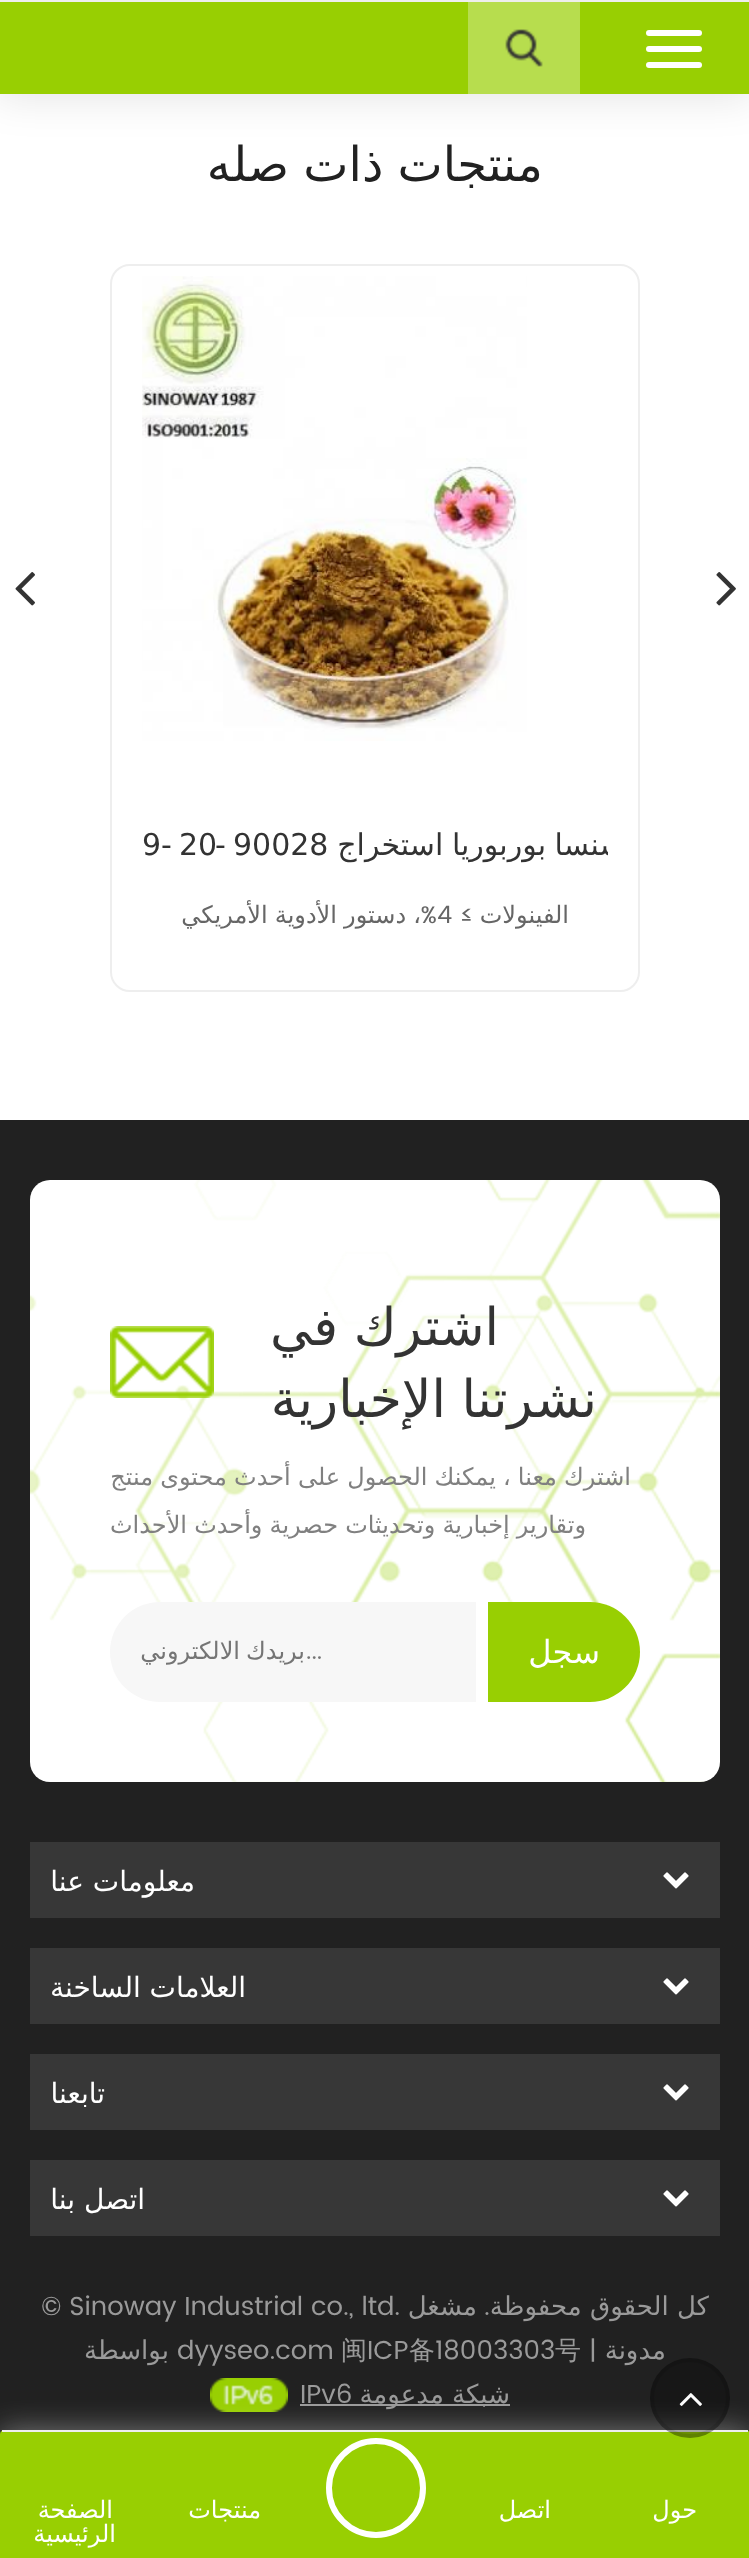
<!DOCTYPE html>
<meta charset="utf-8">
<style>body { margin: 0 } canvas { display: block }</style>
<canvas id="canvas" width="749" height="2558"></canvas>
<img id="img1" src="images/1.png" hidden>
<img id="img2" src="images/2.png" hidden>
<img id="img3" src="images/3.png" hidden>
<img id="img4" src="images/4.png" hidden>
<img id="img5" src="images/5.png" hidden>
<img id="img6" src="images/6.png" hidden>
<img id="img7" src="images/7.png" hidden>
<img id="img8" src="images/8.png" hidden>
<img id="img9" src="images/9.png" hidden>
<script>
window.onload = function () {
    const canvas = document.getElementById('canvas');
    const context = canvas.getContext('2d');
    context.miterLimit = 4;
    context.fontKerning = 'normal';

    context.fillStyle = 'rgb(255, 255, 255)';
    context.fillRect(0, 0, 749, 2558);
    context.fillStyle = 'rgba(0, 0, 0, 0.1)';
    context.filter = 'blur(20px)';
    context.beginPath();
    context.rect(-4, -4, 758, 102);
    context.fill();
    context.filter = 'none';
    context.fillStyle = 'rgb(152, 207, 2)';
    context.fillRect(0, 2, 749, 92);
    context.fillStyle = 'rgb(238, 238, 238)';
    context.fillRect(0, 0, 749, 2);
    context.fillStyle = 'rgb(255, 255, 255)';
    context.beginPath();
    context.roundRect(646, 46, 56, 6, 3);
    context.fill();
    context.beginPath();
    context.roundRect(646, 30, 56, 6, 3);
    context.fill();
    context.beginPath();
    context.roundRect(646, 62, 56, 6, 3);
    context.fill();
    context.fillStyle = 'rgb(183, 221, 78)';
    context.fillRect(468, 2, 112, 92);
    context.drawImage(document.getElementById('img1'), 505, 29, 38, 38);
    context.drawImage(document.getElementById('img2'), 716, 572, 20, 34);
    context.drawImage(document.getElementById('img3'), 15, 572, 20, 34);
    context.beginPath();
    context.roundRect(111, 265, 528, 726, 19);
    context.strokeStyle = 'rgb(238, 238, 238)';
    context.lineWidth = 2;
    context.stroke();
    context.drawImage(document.getElementById('img4'), 142, 276, 385, 465);
    context.fillStyle = 'rgb(33, 33, 33)';
    context.fillRect(0, 1120, 749, 1314);
    context.fillStyle = 'rgb(255, 255, 255)';
    context.beginPath();
    context.roundRect(30, 1180, 690, 602, 20);
    context.fill();
    context.drawImage(document.getElementById('img5'), 30, 1180, 690, 602);
    context.drawImage(document.getElementById('img6'), 110, 1326, 104, 72);
    context.fillStyle = 'rgb(247, 247, 247)';
    context.beginPath();
    context.roundRect(110, 1602, 390, 100, [50, 0, 0, 50]);
    context.fill();
    context.fillStyle = 'rgb(152, 207, 2)';
    context.beginPath();
    context.roundRect(476, 1602, 164, 100, [0, 50, 50, 0]);
    context.fill();
    context.fillStyle = 'rgb(255, 255, 255)';
    context.fillRect(476, 1602, 12, 100);
    context.fillStyle = 'rgb(55, 55, 55)';
    context.fillRect(30, 1842, 690, 76);
    context.drawImage(document.getElementById('img7'), 663, 1872, 26, 17);
    context.fillRect(30, 1948, 690, 76);
    context.drawImage(document.getElementById('img7'), 663, 1978, 26, 17);
    context.fillRect(30, 2054, 690, 76);
    context.drawImage(document.getElementById('img7'), 663, 2084, 26, 17);
    context.fillRect(30, 2160, 690, 76);
    context.drawImage(document.getElementById('img7'), 663, 2190, 26, 17);
    context.fillStyle = 'rgb(154, 154, 154)';
    context.fillRect(300, 2404, 210, 2);
    context.drawImage(document.getElementById('img8'), 210, 2378, 78, 34);
    context.fillStyle = 'rgba(255, 255, 255, 0.4)';
    context.filter = 'blur(15px)';
    context.beginPath();
    context.roundRect(0, 2430, 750, 128, 4);
    context.fill();
    context.filter = 'none';
    context.fillStyle = 'rgb(152, 207, 2)';
    context.beginPath();
    context.moveTo(4, 2430);
    context.lineTo(746, 2430);
    context.bezierCurveTo(748, 2430, 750, 2432, 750, 2434);
    context.lineTo(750, 2558);
    context.lineTo(0, 2558);
    context.lineTo(0, 2434);
    context.bezierCurveTo(0, 2432, 2, 2430, 4, 2430);
    context.closePath();
    context.fill();
    context.beginPath();
    context.arc(376, 2488, 47, 0, 2 * Math.PI);
    context.strokeStyle = 'rgb(255, 255, 255)';
    context.lineWidth = 6;
    context.stroke();
    context.fillStyle = 'rgb(238, 238, 238)';
    context.fillRect(2, 2430, 746, 2);
    context.wordSpacing = '-1px';
    context.direction = 'rtl';
    context.font = '48px DejaVu Sans';
    context.fillStyle = 'rgb(33, 33, 33)';
    context.fillText('منتجات ذات صله', 543, 181);
    context.save();
    context.beginPath();
    context.rect(142, 822, 466, 48);
    context.clip();
    context.font = '30px DejaVu Sans';
    context.fillStyle = 'rgb(51, 51, 51)';
    context.fillText('إشنسا بوربوريا استخراج', 633, 855);
    context.restore();
    context.wordSpacing = '0px';
    context.direction = 'ltr';
    context.font = '30px DejaVu Sans';
    context.fillStyle = 'rgb(51, 51, 51)';
    context.fillText('90028', 233, 855);
    context.fillText('-', 215, 855);
    context.fillText('20', 179, 855);
    context.fillText('9-', 142, 855);
    context.direction = 'rtl';
    context.font = '24px DejaVu Sans';
    context.fillStyle = 'rgb(102, 102, 102)';
    context.fillText('الفينولات', 569, 923);
    context.font = '24px Poppins';
    context.fillText('≥', 473, 923);
    context.direction = 'ltr';
    context.fillText('4', 437, 923);
    context.direction = 'rtl';
    context.fillText('%', 437, 923);
    context.wordSpacing = '-0.5px';
    context.font = '24px DejaVu Sans';
    context.fillText('، دستور الأدوية الأمريكي', 421, 923);
    context.wordSpacing = '-1px';
    context.font = '52px DejaVu Sans';
    context.fillStyle = 'rgb(51, 51, 51)';
    context.fillText('اشترك في', 499, 1345);
    context.fillText('نشرتنا الإخبارية', 597, 1417);
    context.wordSpacing = '-0.5px';
    context.font = '24px DejaVu Sans';
    context.fillStyle = 'rgb(128, 128, 128)';
    context.fillText('اشترك معنا ، يمكنك الحصول على أحدث محتوى منتج', 631, 1485);
    context.fillText('وتقارير إخبارية وتحديثات حصرية وأحدث الأحداث', 586, 1533);
    context.wordSpacing = '0px';
    context.font = '32px DejaVu Sans';
    context.fillStyle = 'rgb(255, 255, 255)';
    context.fillText('سجل', 600, 1663);
    context.direction = 'ltr';
    context.font = '24px Poppins';
    context.fillStyle = 'rgb(117, 117, 117)';
    context.fillText('...', 306, 1659);
    context.direction = 'rtl';
    context.font = '24px DejaVu Sans';
    context.fillText('بريدك', 305, 1659);
    context.fillText('الالكتروني', 240, 1659);
    context.font = '28px DejaVu Sans';
    context.fillStyle = 'rgb(255, 255, 255)';
    context.fillText('معلومات عنا', 195, 1891);
    context.fillText('العلامات الساخنة', 246, 1997);
    context.fillText('تابعنا', 105, 2103);
    context.fillText('اتصل بنا', 145, 2209);
    context.font = '26px DejaVu Sans';
    context.fillStyle = 'rgb(154, 154, 154)';
    context.fillText('كل الحقوق محفوظة', 709, 2315);
    context.font = '26px Poppins';
    context.fillText('.', 490, 2315);
    context.font = '26px DejaVu Sans';
    context.fillText('مشغل', 477, 2315);
    context.direction = 'ltr';
    context.font = '26px Poppins';
    context.fillText('© Sinoway Industrial co., ltd.', 41, 2315);
    context.direction = 'rtl';
    context.font = '26px DejaVu Sans';
    context.fillText('مدونة', 666, 2359);
    context.direction = 'ltr';
    context.font = '26px Poppins';
    context.fillText('|', 589, 2359);
    context.font = '500 26px WenQuanYi Zen Hei';
    context.fillText('号', 555, 2359);
    context.font = '26px Poppins';
    context.fillText('18003303', 435, 2359);
    context.font = '500 26px WenQuanYi Zen Hei';
    context.fillText('备', 409, 2359);
    context.font = '26px Poppins';
    context.fillText('ICP', 367, 2359);
    context.font = '500 26px WenQuanYi Zen Hei';
    context.fillText('闽', 341, 2359);
    context.font = '26px Poppins';
    context.fillText('dyyseo.com', 177, 2359);
    context.direction = 'rtl';
    context.font = '26px DejaVu Sans';
    context.fillText('بواسطة', 169, 2359);
    context.fillText('شبكة مدعومة', 510, 2403);
    context.direction = 'ltr';
    context.font = '26px Poppins';
    context.fillText('IPv6', 300, 2403);
    context.fillStyle = 'rgba(0, 0, 0, 0.3)';
    context.beginPath();
    context.arc(690, 2398, 40, 0, 2 * Math.PI);
    context.fill();
    context.beginPath();
    context.arc(690, 2398, 38, 0, 2 * Math.PI);
    context.strokeStyle = 'rgba(0, 0, 0, 0.1)';
    context.lineWidth = 4;
    context.stroke();
    context.drawImage(document.getElementById('img9'), 679, 2393, 23, 13);
    context.direction = 'rtl';
    context.font = '24px DejaVu Sans';
    context.fillStyle = 'rgb(255, 255, 255)';
    context.fillText('حول', 697, 2518);
    context.fillText('اتصل', 551, 2518);
    context.fillText('منتجات', 261, 2518);
    context.fillText('الصفحة', 113, 2518);
    context.fillText('الرئيسية', 116, 2542);
};
</script>
